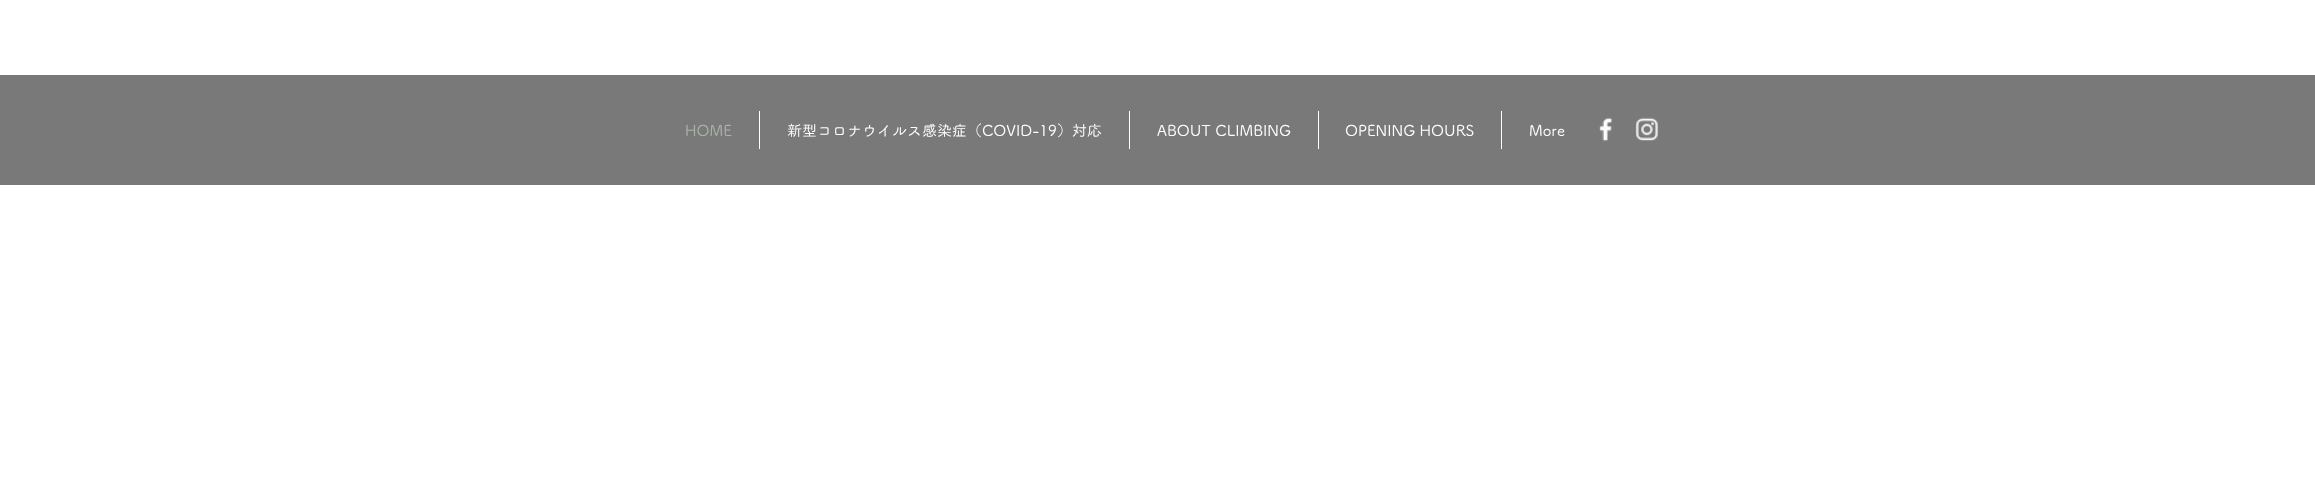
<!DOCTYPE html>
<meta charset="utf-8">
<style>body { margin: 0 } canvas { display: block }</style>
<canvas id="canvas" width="2315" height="488"></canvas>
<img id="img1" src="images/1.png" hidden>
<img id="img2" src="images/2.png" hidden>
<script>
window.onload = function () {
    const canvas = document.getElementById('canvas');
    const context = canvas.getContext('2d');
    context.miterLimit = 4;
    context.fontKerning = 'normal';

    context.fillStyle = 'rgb(255, 255, 255)';
    context.fillRect(0, 0, 2315, 488);
    context.fillStyle = 'rgb(121, 121, 121)';
    context.fillRect(0, 75, 2315, 110);
    context.fillStyle = 'rgb(255, 255, 255)';
    context.fillRect(759, 111, 1, 38);
    context.fillRect(1129, 111, 1, 38);
    context.fillRect(1318, 111, 1, 38);
    context.fillRect(1501, 111, 1, 38);
    context.drawImage(document.getElementById('img1'), 1599, 117, 14, 25);
    context.drawImage(document.getElementById('img2'), 1635, 117, 24, 24);
    context.font = '500 15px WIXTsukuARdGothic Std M';
    context.fillStyle = 'rgb(169, 182, 164)';
    context.fillText('HOME', 685, 136);
    context.fillStyle = 'rgb(255, 255, 255)';
    context.fillText('新型コロナウイルス感染症（COVID-19）対応', 787, 136);
    context.fillText('ABOUT CLIMBING', 1157, 136);
    context.fillText('OPENING HOURS', 1345, 136);
    context.fillText('More', 1529, 136);
};
</script>
